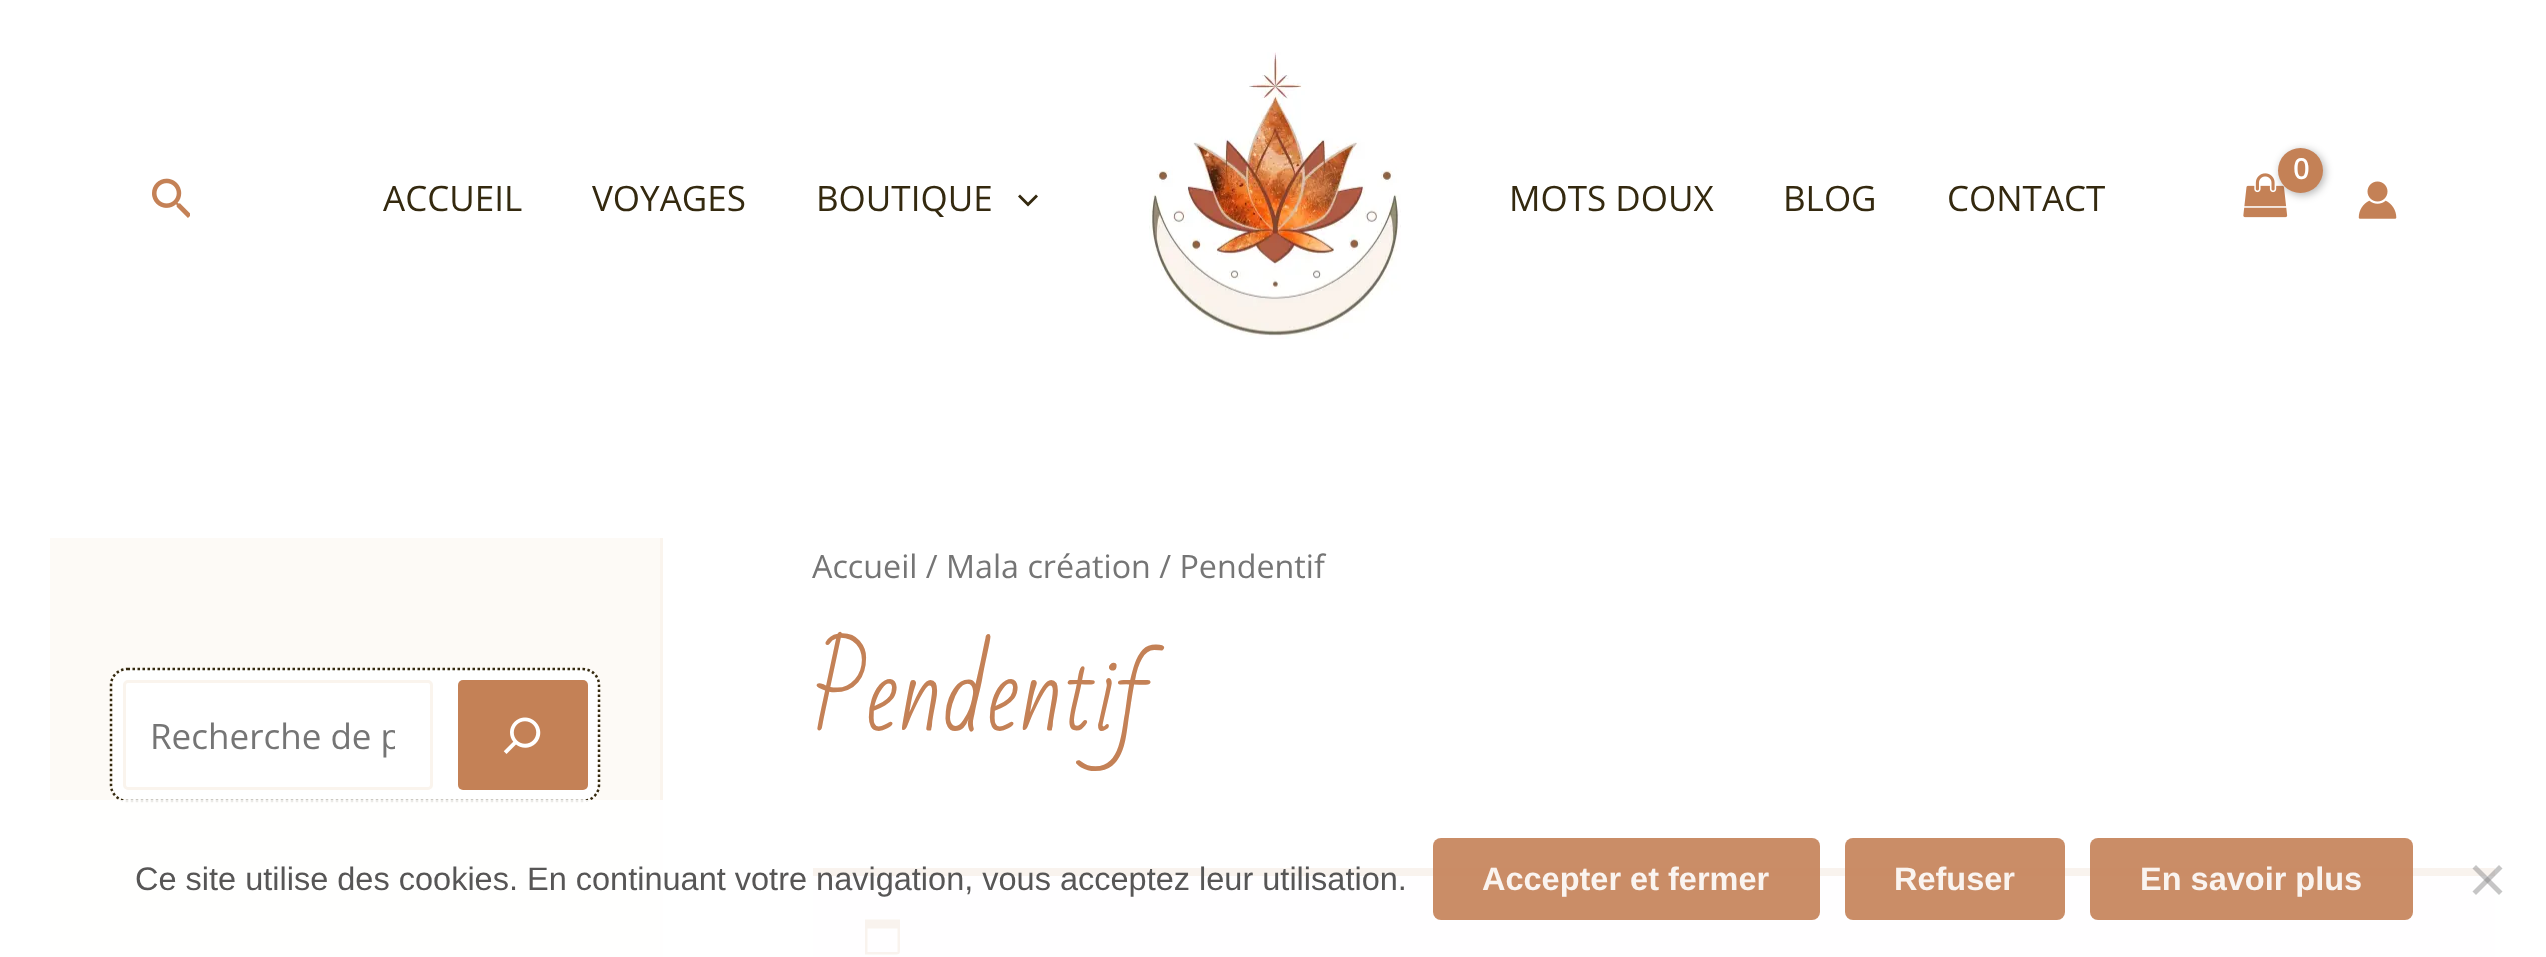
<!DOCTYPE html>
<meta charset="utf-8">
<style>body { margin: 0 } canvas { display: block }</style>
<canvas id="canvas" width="2546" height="957"></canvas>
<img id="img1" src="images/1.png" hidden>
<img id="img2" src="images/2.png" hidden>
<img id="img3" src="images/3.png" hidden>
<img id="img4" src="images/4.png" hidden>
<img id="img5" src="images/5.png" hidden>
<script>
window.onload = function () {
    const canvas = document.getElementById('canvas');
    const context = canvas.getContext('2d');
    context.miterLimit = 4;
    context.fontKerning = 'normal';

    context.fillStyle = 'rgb(255, 255, 255)';
    context.fillRect(0, 0, 2546, 957);
    context.drawImage(document.getElementById('img1'), 152, 178, 38, 40);
    context.fillStyle = 'rgb(52, 41, 15)';
    context.beginPath();
    context.moveTo(1018, 196.5);
    context.lineTo(1028, 206.5);
    context.lineTo(1038, 196.5);
    context.lineTo(1036, 194.5);
    context.lineTo(1028, 202.5);
    context.lineTo(1020, 194.5);
    context.closePath();
    context.fill();
    context.drawImage(document.getElementById('img2'), 1149, 52, 252, 287);
    context.drawImage(document.getElementById('img3'), 2243, 173, 45, 45);
    context.fillStyle = 'rgba(0, 0, 0, 0.3)';
    context.filter = 'blur(4px)';
    context.beginPath();
    context.roundRect(2280, 150, 45, 45, 22.5);
    context.fill();
    context.filter = 'none';
    context.fillStyle = 'rgb(196, 129, 86)';
    context.beginPath();
    context.arc(2300.5, 170.5, 22.5, 0, 2 * Math.PI);
    context.fill();
    context.drawImage(document.getElementById('img4'), 2358, 181, 39, 38);
    context.fillStyle = 'rgb(250, 244, 237)';
    context.fillRect(660, 538, 3, 419);
    context.fillStyle = 'rgb(253, 250, 246)';
    context.fillRect(50, 538, 610, 419);
    context.fillStyle = 'rgb(255, 255, 255)';
    context.beginPath();
    context.roundRect(113, 670, 485, 130, 15);
    context.fill();
    context.beginPath();
    context.roundRect(124.5, 681.5, 307, 107, 3.5);
    context.strokeStyle = 'rgb(250, 244, 237)';
    context.lineWidth = 3;
    context.stroke();
    context.fillStyle = 'rgb(196, 129, 86)';
    context.beginPath();
    context.roundRect(458, 680, 130, 110, 5);
    context.fill();
    context.fillStyle = 'rgb(247, 246, 247)';
    context.fillRect(813, 876, 1682, 81);
    context.fillStyle = 'rgb(196, 129, 86)';
    context.fillRect(813, 868, 1682, 8);
    context.beginPath();
    context.moveTo(897.5, 928.5);
    context.lineTo(867.5, 928.5);
    context.lineTo(867.5, 952);
    context.lineTo(897.5, 952);
    context.closePath();
    context.moveTo(900, 919.5);
    context.lineTo(900, 946.5);
    context.bezierCurveTo(900, 955, 900.5, 954.5, 892, 954.5);
    context.lineTo(865, 954.5);
    context.lineTo(865, 919.5);
    context.closePath();
    context.fill();
    context.font = '35px Open Sans';
    context.fillStyle = 'rgb(52, 41, 15)';
    context.fillText('ACCUEIL', 383, 211);
    context.fillText('VOYAGES', 592, 211);
    context.fillText('BOUTIQUE', 816, 211);
    context.letterSpacing = '-1px';
    context.font = 'bold 28px Open Sans';
    context.fillStyle = 'rgb(255, 255, 255)';
    context.fillText('0', 2293, 179);
    context.letterSpacing = '0px';
    context.font = '35px Open Sans';
    context.fillStyle = 'rgb(52, 41, 15)';
    context.fillText('MOTS DOUX', 1509, 211);
    context.fillText('BLOG', 1783, 211);
    context.fillText('CONTACT', 1947, 211);
    context.save();
    context.beginPath();
    context.rect(150, 710, 245, 48);
    context.clip();
    context.fillStyle = 'rgb(117, 117, 117)';
    context.fillText('Recherche de p', 150, 749);
    context.restore();
    context.beginPath();
    context.moveTo(127.5, 669);
    context.lineTo(582.5, 669);
    context.bezierCurveTo(591.5, 669, 599, 676, 599, 685);
    context.lineTo(599, 785);
    context.bezierCurveTo(599, 794, 591.5, 801, 582.5, 801);
    context.lineTo(127.5, 801);
    context.bezierCurveTo(118.5, 801, 111, 794, 111, 785);
    context.lineTo(111, 685);
    context.bezierCurveTo(111, 676, 118.5, 669, 127.5, 669);
    context.closePath();
    context.strokeStyle = 'rgb(52, 41, 15)';
    context.lineWidth = 2.5;
    context.setLineDash([2.5, 2.5]);
    context.stroke();
    context.drawImage(document.getElementById('img5'), 503, 717, 38, 37);
    context.font = '32.25px Open Sans';
    context.fillStyle = 'rgb(117, 117, 117)';
    context.fillText('Accueil / Mala création / Pendentif', 812, 578);
    context.font = '100px Bad Script';
    context.fillStyle = 'rgb(196, 129, 86)';
    context.fillText('Pendentif', 812, 730);
    context.fillStyle = 'rgba(255, 255, 255, 0.9)';
    context.fillRect(50, 800, 2445, 157);
    context.font = '32.5px Liberation Sans';
    context.fillStyle = 'rgb(87, 86, 86)';
    context.fillText('Ce site utilise des cookies. En continuant votre navigation, vous acceptez leur utilisation.', 135, 890);
    context.fillStyle = 'rgba(196, 129, 86, 0.9)';
    context.beginPath();
    context.roundRect(1433, 838, 387, 82, 8);
    context.fill();
    context.font = 'bold 32.5px Liberation Sans';
    context.fillStyle = 'rgb(250, 244, 240)';
    context.fillText('Accepter et fermer', 1482, 890);
    context.fillStyle = 'rgba(196, 129, 86, 0.9)';
    context.beginPath();
    context.roundRect(1845, 838, 220, 82, 8);
    context.fill();
    context.fillStyle = 'rgb(250, 244, 240)';
    context.fillText('Refuser', 1894, 890);
    context.fillStyle = 'rgba(196, 129, 86, 0.9)';
    context.beginPath();
    context.roundRect(2090, 838, 323, 82, 8);
    context.fill();
    context.fillStyle = 'rgb(250, 244, 240)';
    context.fillText('En savoir plus', 2140, 890);
    context.fillStyle = 'rgba(128, 128, 128, 0.45)';
    context.beginPath();
    context.moveTo(2499, 865);
    context.lineTo(2502.5, 868.5);
    context.lineTo(2476, 895);
    context.lineTo(2472.5, 891.5);
    context.closePath();
    context.fill();
    context.beginPath();
    context.moveTo(2472.5, 868.5);
    context.lineTo(2476, 865);
    context.lineTo(2502.5, 891.5);
    context.lineTo(2499, 895);
    context.closePath();
    context.fill();
};
</script>
